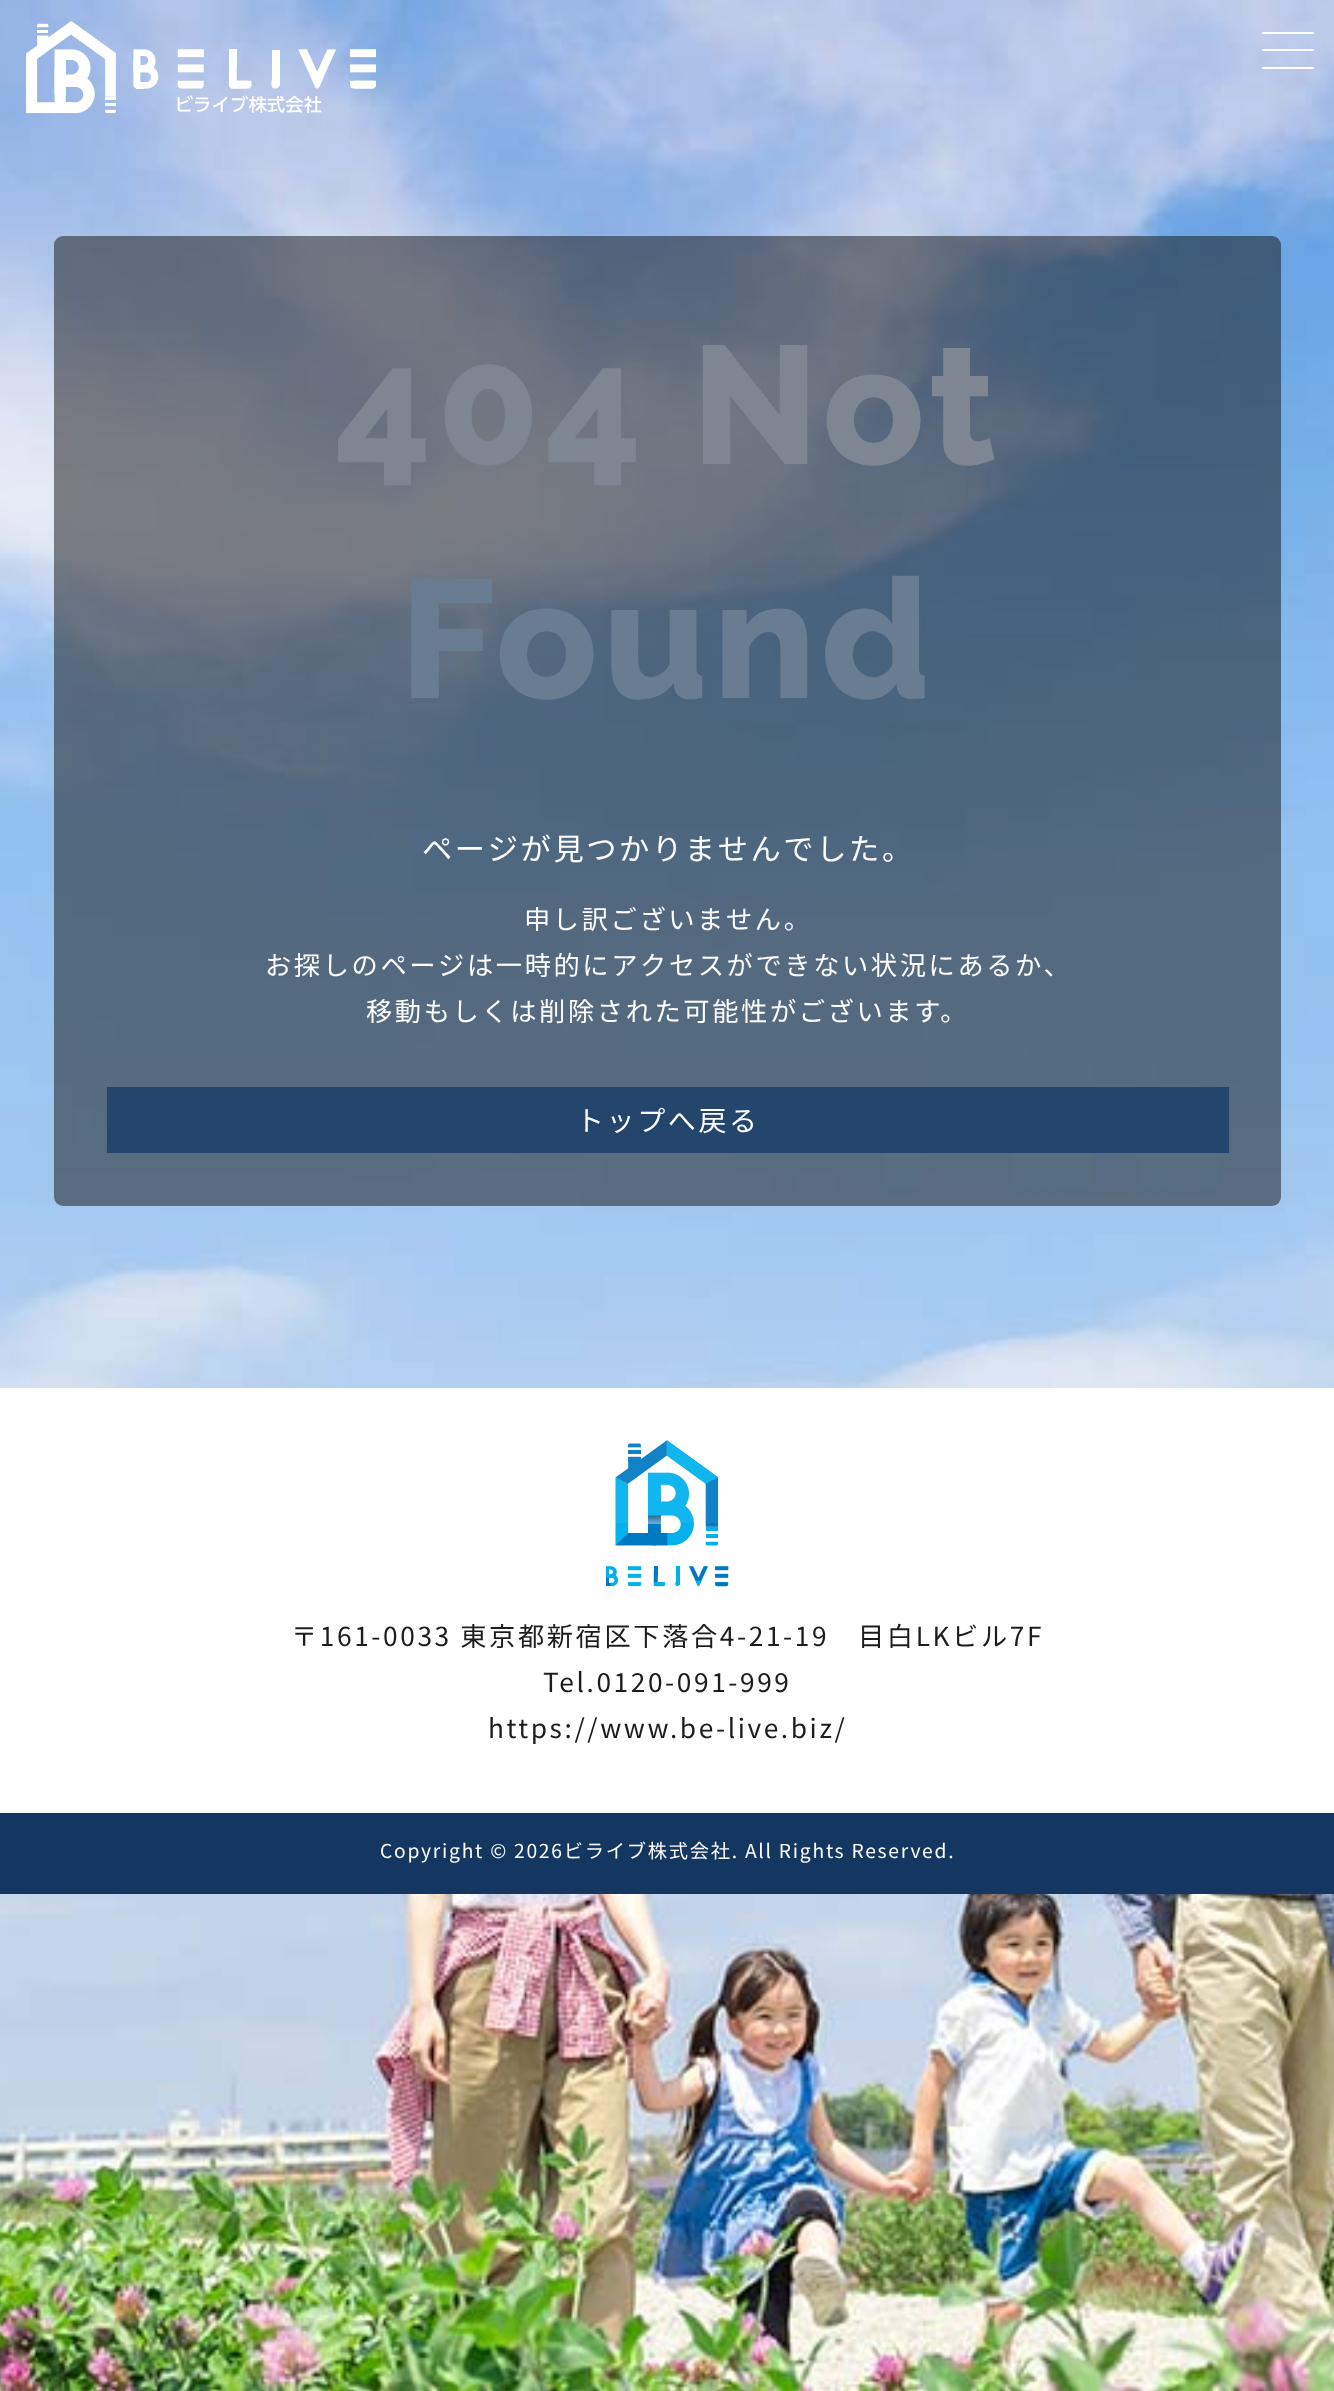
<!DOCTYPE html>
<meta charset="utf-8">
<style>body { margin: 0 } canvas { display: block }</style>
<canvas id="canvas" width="1334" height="2391"></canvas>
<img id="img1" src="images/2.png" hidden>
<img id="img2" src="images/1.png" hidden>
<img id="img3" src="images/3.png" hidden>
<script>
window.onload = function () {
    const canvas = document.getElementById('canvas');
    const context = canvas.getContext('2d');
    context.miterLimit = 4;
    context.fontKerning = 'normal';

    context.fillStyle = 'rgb(255, 255, 255)';
    context.fillRect(0, 0, 1334, 2391);
    context.drawImage(document.getElementById('img1'), 0, 0, 1334, 2391);
    context.drawImage(document.getElementById('img2'), 26, 21, 350, 93);
    context.fillRect(1262, 49, 52, 2);
    context.fillRect(1262, 32, 52, 2);
    context.fillRect(1262, 67, 52, 2);
    context.fillStyle = 'rgba(0, 0, 0, 0.5)';
    context.beginPath();
    context.roundRect(54, 236, 1227, 970, 9);
    context.fill();
    context.fillStyle = 'rgb(20, 55, 97)';
    context.fillRect(107, 1087, 1122, 66);
    context.fillStyle = 'rgb(255, 255, 255)';
    context.fillRect(0, 1388, 1334, 425);
    context.drawImage(document.getElementById('img3'), 606, 1440, 123, 147);
    context.fillStyle = 'rgba(255, 255, 255, 0.07)';
    context.fillRect(0, 0, 1334, 1523);
    context.fillStyle = 'rgb(20, 55, 97)';
    context.fillRect(0, 1813, 1334, 81);
    context.letterSpacing = '5.25px';
    context.font = '800 167.5px Raleway';
    context.fillStyle = 'rgb(126, 134, 146)';
    context.fillText('404 Not', 335, 464);
    context.fillStyle = 'rgb(105, 125, 146)';
    context.fillText('Found', 400, 698);
    context.letterSpacing = '2.6px';
    context.font = '30.25px Noto Sans JP';
    context.fillStyle = 'rgb(252, 252, 252)';
    context.fillText('ページが見つかりませんでした。', 422, 860);
    context.font = '26.25px Noto Sans JP';
    context.fillText('申し訳ございません。', 524, 929);
    context.fillText('お探しのページは一時的にアクセスができない状況にあるか、', 265, 975);
    context.fillText('移動もしくは削除された可能性がございます。', 366, 1021);
    context.font = '28px Noto Sans JP';
    context.fillText('トップへ戻る', 576, 1131);
    context.font = '26.25px Noto Sans JP';
    context.fillStyle = 'rgb(28, 28, 28)';
    context.fillText('〒161-0033 東京都新宿区下落合4-21-19　目白LKビル7F', 291, 1646);
    context.fillText('Tel.0120-091-999', 543, 1692);
    context.fillText('https://www.be-live.biz/', 488, 1738);
    context.letterSpacing = '1.75px';
    context.font = '19.25px Noto Sans JP';
    context.fillStyle = 'rgb(252, 252, 252)';
    context.fillText('Copyright © 2026ビライブ株式会社. All Rights Reserved.', 380, 1858);
};
</script>
